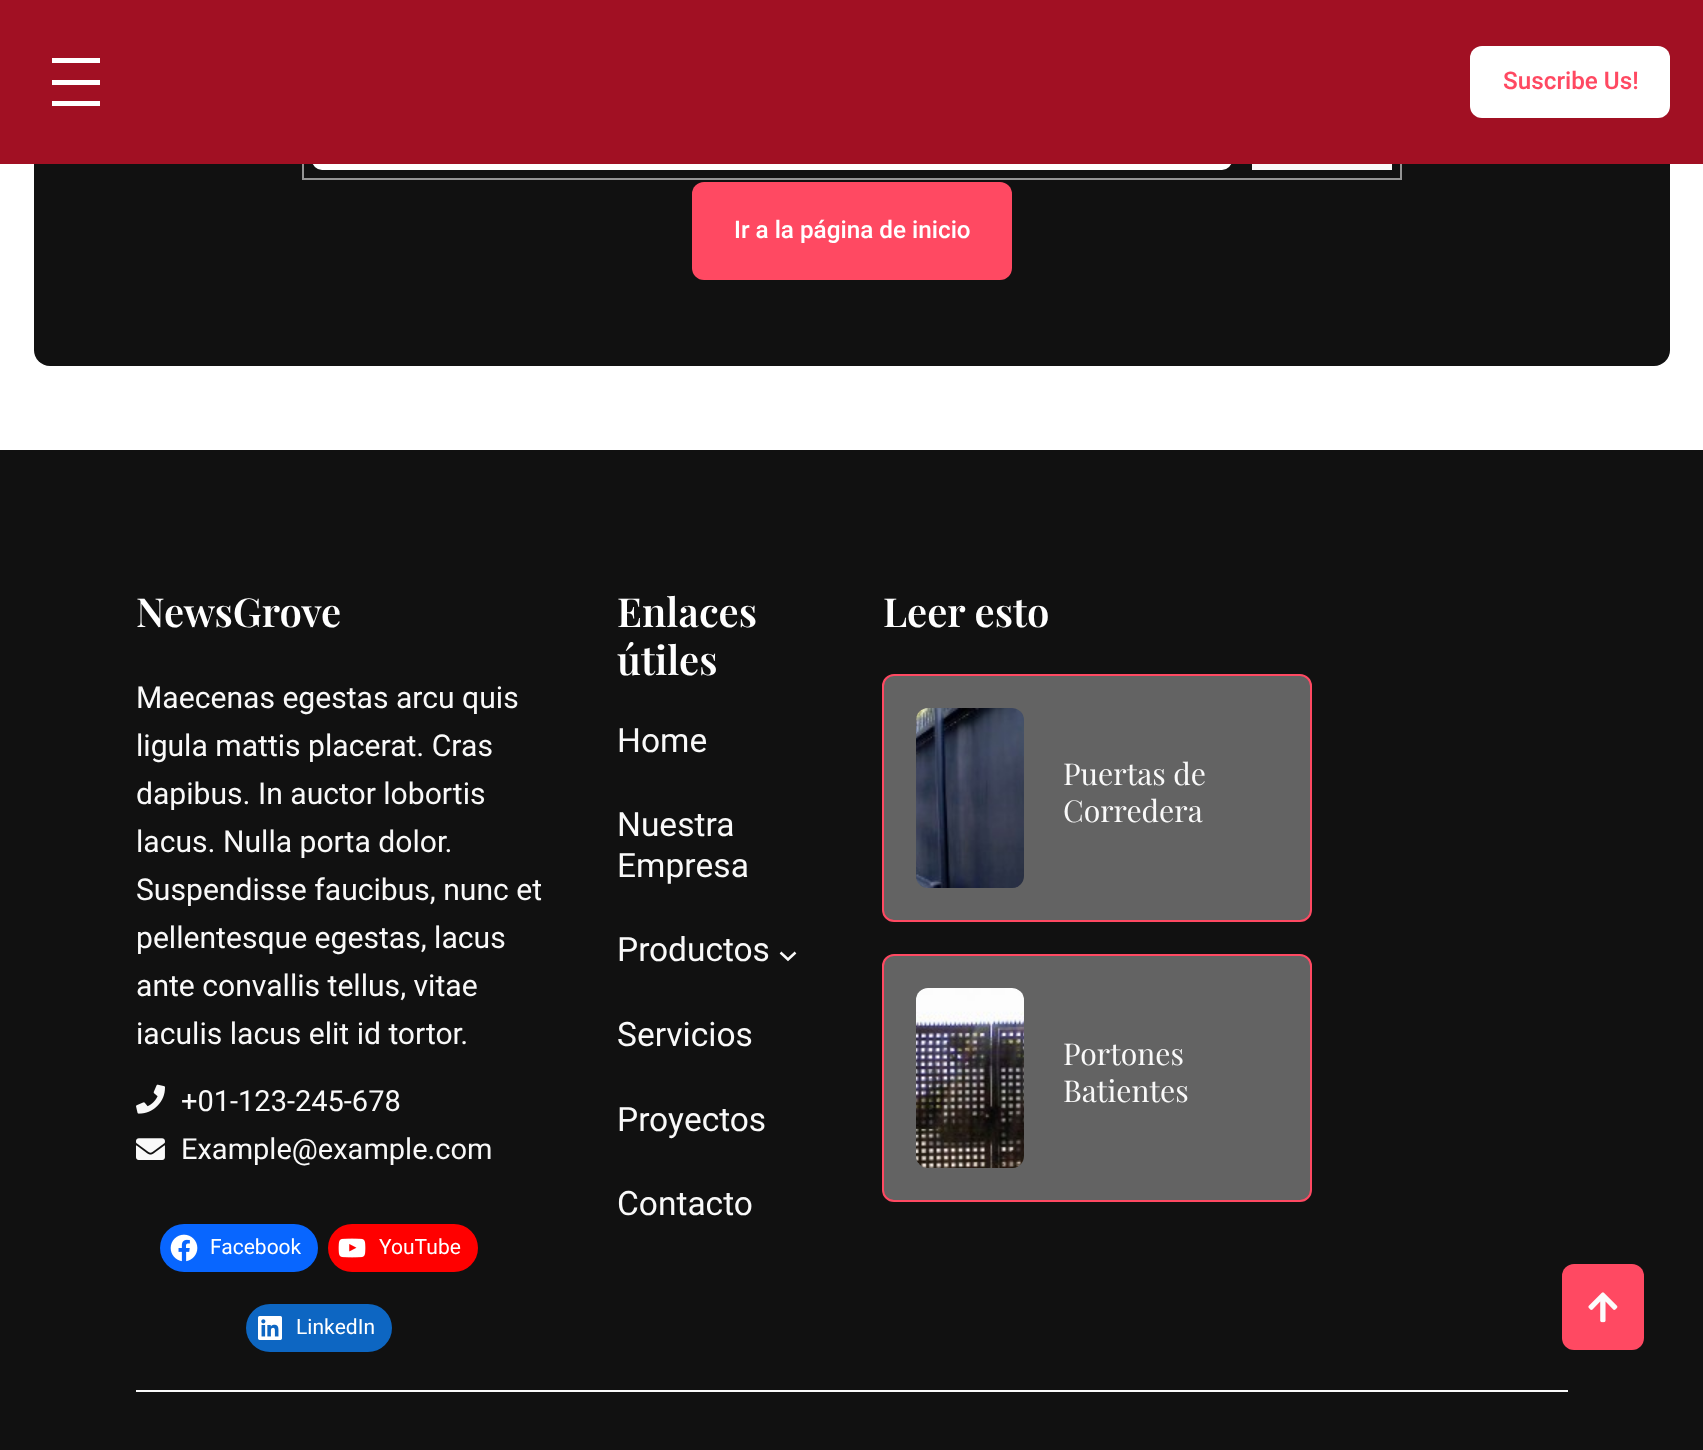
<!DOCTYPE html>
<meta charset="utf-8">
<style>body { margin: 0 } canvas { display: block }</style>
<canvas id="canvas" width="1703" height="1450"></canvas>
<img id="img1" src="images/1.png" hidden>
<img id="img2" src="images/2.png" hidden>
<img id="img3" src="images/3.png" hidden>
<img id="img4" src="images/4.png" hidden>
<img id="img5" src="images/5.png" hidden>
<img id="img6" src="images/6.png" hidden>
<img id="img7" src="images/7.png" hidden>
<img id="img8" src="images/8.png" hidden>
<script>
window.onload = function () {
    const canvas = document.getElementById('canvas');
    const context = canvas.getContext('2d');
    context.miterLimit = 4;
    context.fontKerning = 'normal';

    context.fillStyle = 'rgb(255, 255, 255)';
    context.fillRect(0, 0, 1703, 1450);
    context.fillStyle = 'rgb(17, 17, 17)';
    context.beginPath();
    context.roundRect(34, -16, 1636, 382, 16);
    context.fill();
    context.strokeStyle = 'rgb(148, 148, 148)';
    context.lineWidth = 2;
    context.strokeRect(303, 83, 1098, 96);
    context.fillStyle = 'rgb(255, 255, 255)';
    context.beginPath();
    context.roundRect(312, 92, 920, 78, 10);
    context.fill();
    context.fillStyle = 'rgb(161, 16, 35)';
    context.fillRect(0, 0, 1703, 164);
    context.fillStyle = 'rgb(255, 255, 255)';
    context.beginPath();
    context.moveTo(52, 58);
    context.lineTo(52, 63);
    context.lineTo(100, 63);
    context.lineTo(100, 58);
    context.closePath();
    context.moveTo(52, 85);
    context.lineTo(100, 85);
    context.lineTo(100, 80);
    context.lineTo(52, 80);
    context.closePath();
    context.moveTo(52, 106);
    context.lineTo(100, 106);
    context.lineTo(100, 101);
    context.lineTo(52, 101);
    context.closePath();
    context.fill();
    context.beginPath();
    context.roundRect(1470, 46, 200, 72, 12);
    context.fill();
    context.fillStyle = 'rgb(249, 249, 249)';
    context.fillRect(1252, 164, 140, 6);
    context.fillStyle = 'rgb(255, 73, 98)';
    context.beginPath();
    context.roundRect(692, 182, 320, 98, 12);
    context.fill();
    context.fillStyle = 'rgb(17, 17, 17)';
    context.fillRect(0, 450, 1703, 1000);
    context.drawImage(document.getElementById('img1'), 136, 1084, 29, 30);
    context.drawImage(document.getElementById('img2'), 136, 1138, 29, 22);
    context.fillStyle = 'rgb(8, 102, 255)';
    context.beginPath();
    context.roundRect(160, 1224, 158, 48, 24);
    context.fill();
    context.drawImage(document.getElementById('img3'), 170, 1234, 28, 28);
    context.fillStyle = 'rgb(255, 0, 0)';
    context.beginPath();
    context.roundRect(328, 1224, 150, 48, 24);
    context.fill();
    context.drawImage(document.getElementById('img4'), 338, 1238, 28, 20);
    context.fillStyle = 'rgb(13, 102, 194)';
    context.beginPath();
    context.roundRect(246, 1304, 146, 48, 24);
    context.fill();
    context.drawImage(document.getElementById('img5'), 258, 1316, 24, 24);
    context.beginPath();
    context.moveTo(780.5, 952.5);
    context.lineTo(788, 959.5);
    context.lineTo(795.5, 952.5);
    context.strokeStyle = 'rgb(249, 249, 249)';
    context.lineWidth = 2.5;
    context.stroke();
    context.fillStyle = 'rgb(99, 99, 99)';
    context.beginPath();
    context.roundRect(883, 675, 428, 246, 11);
    context.fill();
    context.strokeStyle = 'rgb(255, 73, 98)';
    context.lineWidth = 2;
    context.stroke();
    context.drawImage(document.getElementById('img6'), 916, 708, 108, 180);
    context.beginPath();
    context.roundRect(883, 955, 428, 246, 11);
    context.fill();
    context.stroke();
    context.drawImage(document.getElementById('img7'), 916, 988, 108, 180);
    context.fillStyle = 'rgb(249, 249, 249)';
    context.fillRect(136, 1390, 1432, 2);
    context.fillStyle = 'rgb(255, 73, 98)';
    context.beginPath();
    context.roundRect(1562, 1264, 82, 86, 12);
    context.fill();
    context.drawImage(document.getElementById('img8'), 1588, 1292, 30, 31);
    context.font = '500 24.25px Heebo';
    context.fillText('Suscribe Us!', 1503, 89);
    context.fillStyle = 'rgb(255, 255, 255)';
    context.fillText('Ir a la página de inicio', 734, 238);
    context.font = '600 40px Playfair Display';
    context.fillText('NewsGrove', 136, 627);
    context.font = '30.1px Heebo';
    context.fillStyle = 'rgb(249, 249, 249)';
    context.fillText('Maecenas egestas arcu quis', 136, 708);
    context.fillText('ligula mattis placerat. Cras', 136, 756);
    context.fillText('dapibus. In auctor lobortis', 136, 804);
    context.fillText('lacus. Nulla porta dolor.', 136, 852);
    context.fillText('Suspendisse faucibus, nunc et', 136, 900);
    context.fillText('pellentesque egestas, lacus', 136, 948);
    context.fillText('ante convallis tellus, vitae', 136, 996);
    context.fillText('iaculis lacus elit id tortor.', 136, 1044);
    context.font = '29px Heebo';
    context.fillText('+01-123-245-678', 181, 1111);
    context.fillText('Example@example.com', 181, 1159);
    context.font = '21px Heebo';
    context.fillStyle = 'rgb(255, 255, 255)';
    context.fillText('Facebook', 210, 1254);
    context.fillText('YouTube', 379, 1254);
    context.fillText('LinkedIn', 296, 1334);
    context.font = '600 40px Playfair Display';
    context.fillText('Enlaces', 617, 627);
    context.fillText('útiles', 617, 675);
    context.font = '33.5px Heebo';
    context.fillStyle = 'rgb(249, 249, 249)';
    context.fillText('Home', 617, 752);
    context.fillText('Nuestra', 617, 836);
    context.fillText('Empresa', 617, 877);
    context.fillText('Productos', 617, 961);
    context.fillText('Servicios', 617, 1046);
    context.fillText('Proyectos', 617, 1131);
    context.fillText('Contacto', 617, 1215);
    context.font = '600 40px Playfair Display';
    context.fillStyle = 'rgb(255, 255, 255)';
    context.fillText('Leer esto', 883, 627);
    context.font = '30.1px Playfair Display';
    context.fillStyle = 'rgb(249, 249, 249)';
    context.fillText('Puertas de', 1063, 785);
    context.fillText('Corredera', 1063, 822);
    context.fillText('Portones', 1063, 1065);
    context.fillText('Batientes', 1063, 1102);
};
</script>
